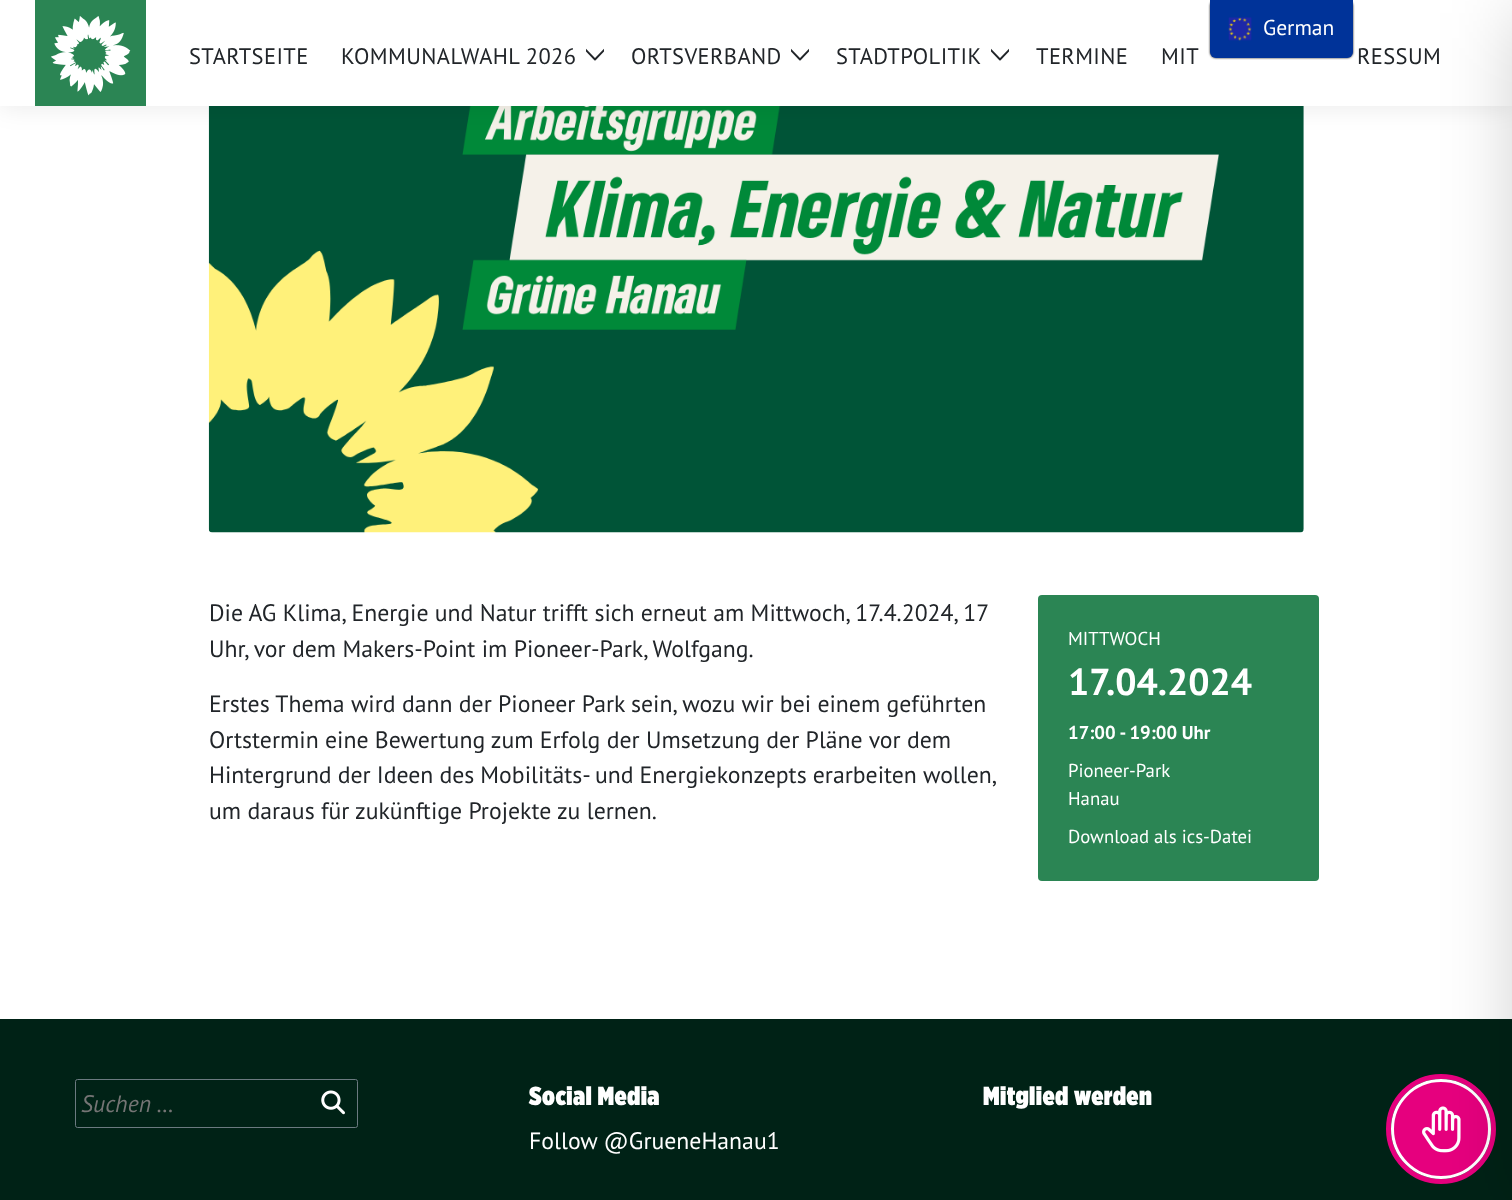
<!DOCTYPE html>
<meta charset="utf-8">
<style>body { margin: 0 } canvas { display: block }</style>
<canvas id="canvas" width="1512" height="1200"></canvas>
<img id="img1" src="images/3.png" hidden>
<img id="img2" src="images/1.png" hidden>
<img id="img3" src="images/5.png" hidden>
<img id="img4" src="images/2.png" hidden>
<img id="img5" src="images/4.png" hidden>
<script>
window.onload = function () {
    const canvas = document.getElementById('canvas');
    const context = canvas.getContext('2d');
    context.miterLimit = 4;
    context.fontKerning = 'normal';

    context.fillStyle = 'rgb(255, 255, 255)';
    context.fillRect(0, 0, 1512, 1200);
    context.drawImage(document.getElementById('img1'), 208, 106, 1096, 427);
    context.fillStyle = 'rgba(0, 0, 0, 0.08)';
    context.filter = 'blur(12.5px)';
    context.beginPath();
    context.rect(0, 1, 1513, 107);
    context.fill();
    context.filter = 'none';
    context.fillStyle = 'rgb(255, 255, 255)';
    context.fillRect(0, 0, 1512, 106);
    context.fillStyle = 'rgb(33, 33, 33)';
    context.filter = 'blur(1px)';
    context.beginPath();
    context.roundRect(1210, 0, 143, 58, 6);
    context.fill();
    context.filter = 'none';
    context.fillStyle = 'rgb(0, 51, 153)';
    context.beginPath();
    context.roundRect(1210, 0, 143, 58, [0, 0, 6, 6]);
    context.fill();
    context.drawImage(document.getElementById('img2'), 1228, 17, 24, 24);
    context.fillStyle = 'rgb(0, 34, 22)';
    context.fillRect(0, 1019, 1512, 181);
    context.beginPath();
    context.arc(1441, 1129, 52.5, 0, 2 * Math.PI);
    context.strokeStyle = 'rgb(230, 0, 126)';
    context.lineWidth = 5;
    context.stroke();
    context.fillStyle = 'rgb(230, 0, 126)';
    context.beginPath();
    context.arc(1441, 1129, 48.5, 0, 2 * Math.PI);
    context.fill();
    context.strokeStyle = 'rgb(255, 255, 255)';
    context.lineWidth = 3;
    context.stroke();
    context.drawImage(document.getElementById('img3'), 1422, 1106, 39, 47);
    context.fillStyle = 'rgba(0, 0, 0, 0.2)';
    context.filter = 'blur(37.5px)';
    context.beginPath();
    context.rect(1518, 13, 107, 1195);
    context.fill();
    context.filter = 'none';
    context.fillStyle = 'rgb(43, 133, 84)';
    context.fillRect(35, 0, 111, 106);
    context.drawImage(document.getElementById('img4'), 51, 16, 80, 80);
    context.save();
    context.beginPath();
    context.rect(586, 39, 18, 30);
    context.clip();
    context.beginPath();
    context.moveTo(584, 48);
    context.lineTo(595, 59.5);
    context.lineTo(606, 48);
    context.strokeStyle = 'rgb(33, 37, 41)';
    context.lineWidth = 1.9;
    context.lineCap = 'round';
    context.lineJoin = 'round';
    context.stroke();
    context.restore();
    context.save();
    context.beginPath();
    context.rect(791, 39, 18, 30);
    context.clip();
    context.beginPath();
    context.moveTo(789, 48);
    context.lineTo(800, 59.5);
    context.lineTo(811, 48);
    context.strokeStyle = 'rgb(33, 37, 41)';
    context.lineWidth = 1.9;
    context.lineCap = 'round';
    context.lineJoin = 'round';
    context.stroke();
    context.restore();
    context.save();
    context.beginPath();
    context.rect(991, 39, 18, 30);
    context.clip();
    context.beginPath();
    context.moveTo(989, 48);
    context.lineTo(1000, 59.5);
    context.lineTo(1011, 48);
    context.strokeStyle = 'rgb(33, 37, 41)';
    context.lineWidth = 1.9;
    context.lineCap = 'round';
    context.lineJoin = 'round';
    context.stroke();
    context.restore();
    context.beginPath();
    context.roundRect(1038, 595, 281, 286, 4);
    context.fill();
    context.beginPath();
    context.roundRect(75.5, 1079.5, 282, 48, 2);
    context.strokeStyle = 'rgb(107, 122, 128)';
    context.lineWidth = 1;
    context.stroke();
    context.drawImage(document.getElementById('img5'), 321, 1090, 24, 25);
    context.font = '21.5px PT Sans';
    context.fillStyle = 'rgb(255, 255, 255)';
    context.fillText('German', 1263, 35);
    context.letterSpacing = '0.4px';
    context.font = '22.5px PT Sans';
    context.fillStyle = 'rgb(33, 37, 41)';
    context.fillText('STARTSEITE', 189, 64);
    context.fillText('KOMMUNALWAHL 2026', 341, 64);
    context.fillText('ORTSVERBAND', 631, 64);
    context.fillText('STADTPOLITIK', 836, 64);
    context.fillText('TERMINE', 1036, 64);
    context.fillText('MIT', 1161, 64);
    context.fillText('RESSUM', 1357, 64);
    context.letterSpacing = '0px';
    context.font = '23.75px PT Sans';
    context.fillText('Die AG Klima, Energie und Natur trifft sich erneut am Mittwoch, 17.4.2024, 17', 209, 621);
    context.fillText('Uhr, vor dem Makers-Point im Pioneer-Park, Wolfgang.', 209, 657);
    context.fillText('Erstes Thema wird dann der Pioneer Park sein, wozu wir bei einem geführten', 209, 712);
    context.fillText('Ortstermin eine Bewertung zum Erfolg der Umsetzung der Pläne vor dem', 209, 748);
    context.wordSpacing = '-0.25px';
    context.fillText('Hintergrund der Ideen des Mobilitäts- und Energiekonzepts erarbeiten wollen,', 209, 783);
    context.wordSpacing = '0px';
    context.fillText('um daraus für zukünftige Projekte zu lernen.', 209, 819);
    context.font = '18.75px PT Sans';
    context.fillStyle = 'rgb(255, 255, 255)';
    context.fillText('MITTWOCH', 1068, 645);
    context.font = 'bold 37.5px PT Sans';
    context.fillText('17.04.2024', 1068, 695);
    context.font = 'bold 18.75px PT Sans';
    context.fillText('17:00 - 19:00 Uhr', 1068, 739);
    context.font = '18.75px PT Sans';
    context.fillText('Pioneer-Park', 1068, 777);
    context.fillText('Hanau', 1068, 805);
    context.fillText('Download als ics-Datei', 1068, 843);
    context.font = 'italic 23.75px PT Sans';
    context.fillStyle = 'rgb(117, 117, 117)';
    context.fillText('Suchen …', 81, 1112);
    context.letterSpacing = '0.4px';
    context.font = '900 26px Gotham';
    context.fillStyle = 'rgb(255, 255, 255)';
    context.fillText('Social Media', 529, 1105);
    context.letterSpacing = '0px';
    context.font = '23.75px PT Sans';
    context.fillText('Follow @GrueneHanau1', 529, 1149);
    context.letterSpacing = '0.4px';
    context.font = '900 26px Gotham';
    context.fillText('Mitglied werden', 983, 1105);
};
</script>
